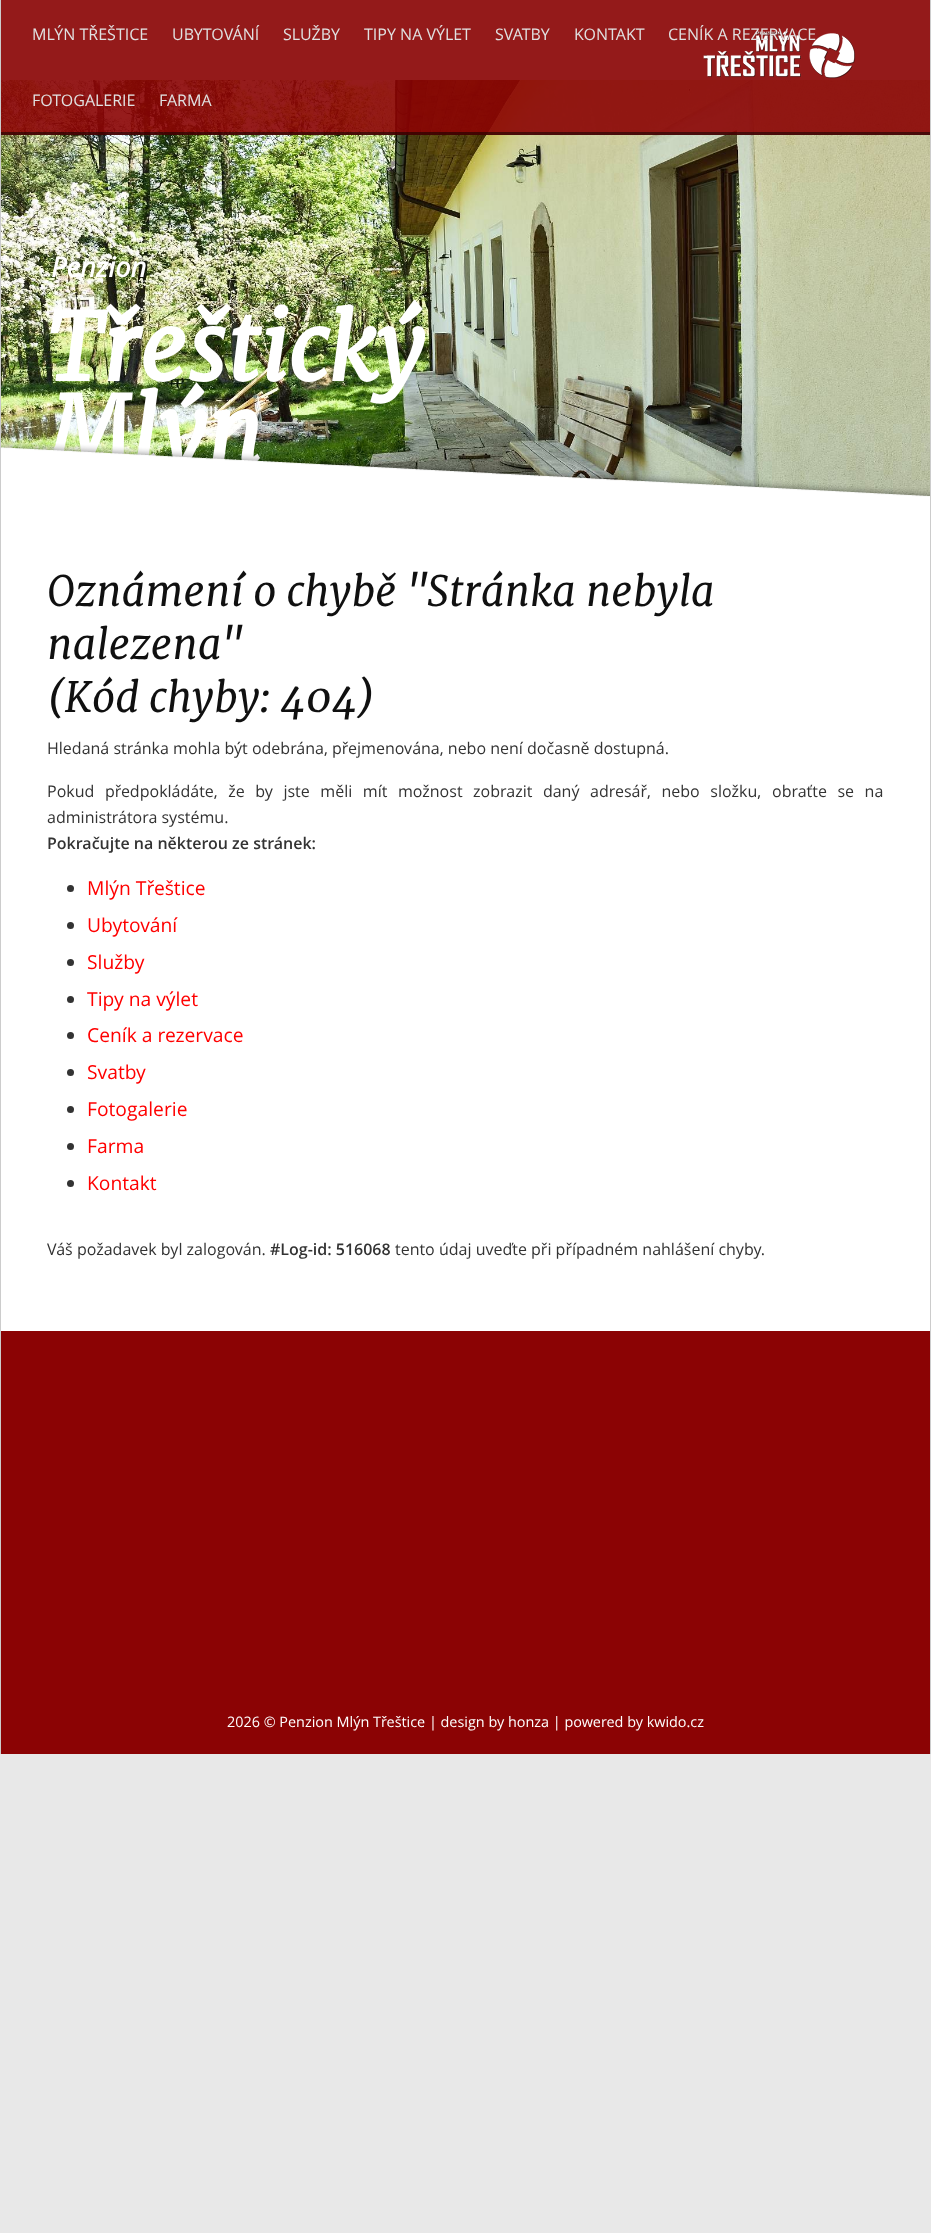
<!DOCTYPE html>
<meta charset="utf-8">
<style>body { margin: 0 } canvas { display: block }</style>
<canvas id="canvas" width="931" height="2233"></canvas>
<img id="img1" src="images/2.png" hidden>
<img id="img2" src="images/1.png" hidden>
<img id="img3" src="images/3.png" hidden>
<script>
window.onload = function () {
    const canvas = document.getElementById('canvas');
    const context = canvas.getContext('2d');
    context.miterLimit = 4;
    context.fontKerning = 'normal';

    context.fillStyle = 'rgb(232, 232, 232)';
    context.fillRect(0, 0, 931, 2233);
    context.fillStyle = 'rgb(204, 204, 204)';
    context.fillRect(930, 0, 1, 1754);
    context.fillRect(0, 0, 1, 1754);
    context.drawImage(document.getElementById('img1'), 1, 80, 929, 417);
    context.fillStyle = 'rgba(139, 3, 3, 0.9)';
    context.fillRect(1, 0, 929, 135);
    context.fillStyle = 'rgba(0, 0, 0, 0.5)';
    context.fillRect(1, 132, 929, 3);
    context.drawImage(document.getElementById('img2'), 703, 31, 153, 48);
    context.fillStyle = 'rgb(139, 3, 4)';
    context.fillRect(1, 1331, 929, 423);
    context.font = '16px Open Sans';
    context.fillStyle = 'rgb(225, 225, 225)';
    context.fillText('MLÝN TŘEŠTICE', 32, 40);
    context.fillText('UBYTOVÁNÍ', 172, 40);
    context.fillText('SLUŽBY', 283, 40);
    context.fillText('TIPY NA VÝLET', 364, 40);
    context.fillText('SVATBY', 495, 40);
    context.fillText('KONTAKT', 574, 40);
    context.fillText('CENÍK A REZERVACE', 668, 40);
    context.fillText('FOTOGALERIE', 32, 106);
    context.fillText('FARMA', 159, 106);
    context.font = 'italic bold 27.5px Open Sans';
    context.fillStyle = 'rgb(255, 255, 255)';
    context.fillText('Penzion', 51, 277);
    context.font = 'italic bold 92px Merriweather';
    context.fillText('Třeštický', 47, 381);
    context.fillText('Mlýn', 47, 464);
    context.drawImage(document.getElementById('img3'), 1, 441, 929, 890);
    context.font = 'italic 41.6px Merriweather';
    context.fillStyle = 'rgb(16, 16, 16)';
    context.fillText('Oznámení o chybě "Stránka nebyla', 47, 606);
    context.fillText('nalezena"', 47, 659);
    context.fillText('(Kód chyby: 404)', 47, 712);
    context.font = '16px Open Sans';
    context.fillStyle = 'rgb(51, 51, 51)';
    context.fillText('Hledaná stránka mohla být odebrána, přejmenována, nebo není dočasně dostupná.', 47, 754);
    context.wordSpacing = '6.4px';
    context.fillText('Pokud předpokládáte, že by jste měli mít možnost zobrazit daný adresář, nebo složku,', 47, 797);
    context.fillText('obraťte se na', 772, 797);
    context.wordSpacing = '0px';
    context.fillText('administrátora systému.', 47, 823);
    context.font = '600 16px Open Sans';
    context.fillText('Pokračujte na některou ze stránek:', 47, 849);
    context.beginPath();
    context.arc(70.5, 888.5, 3.5, 0, 2 * Math.PI);
    context.fill();
    context.font = '19.25px Open Sans';
    context.fillStyle = 'rgb(255, 0, 0)';
    context.fillText('Mlýn Třeštice', 87, 895);
    context.fillStyle = 'rgb(51, 51, 51)';
    context.beginPath();
    context.arc(70.5, 925.5, 3.5, 0, 2 * Math.PI);
    context.fill();
    context.fillStyle = 'rgb(255, 0, 0)';
    context.fillText('Ubytování', 87, 932);
    context.fillStyle = 'rgb(51, 51, 51)';
    context.beginPath();
    context.arc(70.5, 962.5, 3.5, 0, 2 * Math.PI);
    context.fill();
    context.fillStyle = 'rgb(255, 0, 0)';
    context.fillText('Služby', 87, 969);
    context.fillStyle = 'rgb(51, 51, 51)';
    context.beginPath();
    context.arc(70.5, 999.5, 3.5, 0, 2 * Math.PI);
    context.fill();
    context.fillStyle = 'rgb(255, 0, 0)';
    context.fillText('Tipy na výlet', 87, 1006);
    context.fillStyle = 'rgb(51, 51, 51)';
    context.beginPath();
    context.arc(70.5, 1035.5, 3.5, 0, 2 * Math.PI);
    context.fill();
    context.fillStyle = 'rgb(255, 0, 0)';
    context.fillText('Ceník a rezervace', 87, 1042);
    context.fillStyle = 'rgb(51, 51, 51)';
    context.beginPath();
    context.arc(70.5, 1072.5, 3.5, 0, 2 * Math.PI);
    context.fill();
    context.fillStyle = 'rgb(255, 0, 0)';
    context.fillText('Svatby', 87, 1079);
    context.fillStyle = 'rgb(51, 51, 51)';
    context.beginPath();
    context.arc(70.5, 1109.5, 3.5, 0, 2 * Math.PI);
    context.fill();
    context.fillStyle = 'rgb(255, 0, 0)';
    context.fillText('Fotogalerie', 87, 1116);
    context.fillStyle = 'rgb(51, 51, 51)';
    context.beginPath();
    context.arc(70.5, 1146.5, 3.5, 0, 2 * Math.PI);
    context.fill();
    context.fillStyle = 'rgb(255, 0, 0)';
    context.fillText('Farma', 87, 1153);
    context.fillStyle = 'rgb(51, 51, 51)';
    context.beginPath();
    context.arc(70.5, 1183.5, 3.5, 0, 2 * Math.PI);
    context.fill();
    context.fillStyle = 'rgb(255, 0, 0)';
    context.fillText('Kontakt', 87, 1190);
    context.font = '16px Open Sans';
    context.fillStyle = 'rgb(51, 51, 51)';
    context.fillText('Váš požadavek byl zalogován.', 47, 1255);
    context.font = '600 16px Open Sans';
    context.fillText('#Log-id: 516068', 270, 1255);
    context.font = '16px Open Sans';
    context.fillText('tento údaj uveďte při případném nahlášení chyby.', 395, 1255);
    context.font = '14.4px Open Sans';
    context.fillStyle = 'rgb(255, 255, 255)';
    context.fillText('2026 © Penzion Mlýn Třeštice | design by honza | powered by kwido.cz', 227, 1727);
};
</script>
